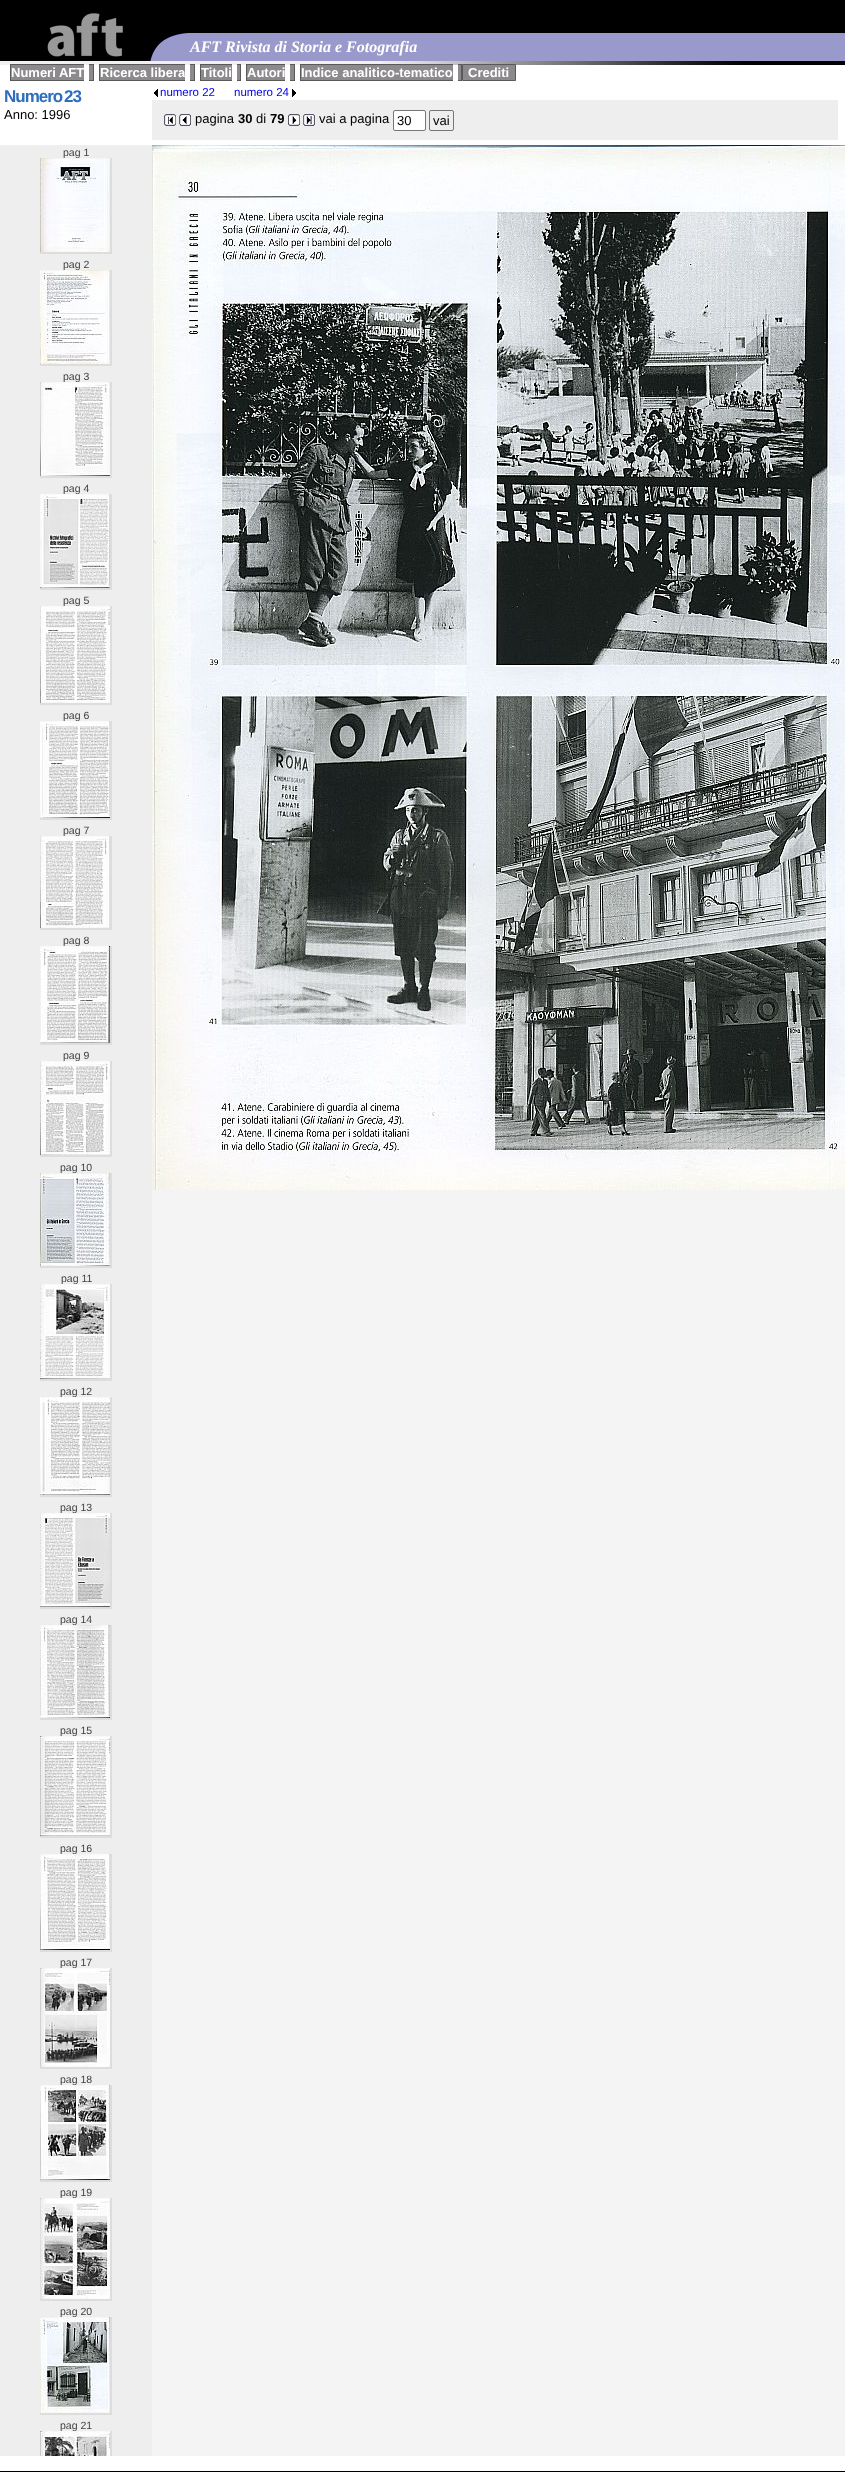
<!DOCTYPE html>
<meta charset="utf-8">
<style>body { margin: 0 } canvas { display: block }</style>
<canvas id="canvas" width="845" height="2472"></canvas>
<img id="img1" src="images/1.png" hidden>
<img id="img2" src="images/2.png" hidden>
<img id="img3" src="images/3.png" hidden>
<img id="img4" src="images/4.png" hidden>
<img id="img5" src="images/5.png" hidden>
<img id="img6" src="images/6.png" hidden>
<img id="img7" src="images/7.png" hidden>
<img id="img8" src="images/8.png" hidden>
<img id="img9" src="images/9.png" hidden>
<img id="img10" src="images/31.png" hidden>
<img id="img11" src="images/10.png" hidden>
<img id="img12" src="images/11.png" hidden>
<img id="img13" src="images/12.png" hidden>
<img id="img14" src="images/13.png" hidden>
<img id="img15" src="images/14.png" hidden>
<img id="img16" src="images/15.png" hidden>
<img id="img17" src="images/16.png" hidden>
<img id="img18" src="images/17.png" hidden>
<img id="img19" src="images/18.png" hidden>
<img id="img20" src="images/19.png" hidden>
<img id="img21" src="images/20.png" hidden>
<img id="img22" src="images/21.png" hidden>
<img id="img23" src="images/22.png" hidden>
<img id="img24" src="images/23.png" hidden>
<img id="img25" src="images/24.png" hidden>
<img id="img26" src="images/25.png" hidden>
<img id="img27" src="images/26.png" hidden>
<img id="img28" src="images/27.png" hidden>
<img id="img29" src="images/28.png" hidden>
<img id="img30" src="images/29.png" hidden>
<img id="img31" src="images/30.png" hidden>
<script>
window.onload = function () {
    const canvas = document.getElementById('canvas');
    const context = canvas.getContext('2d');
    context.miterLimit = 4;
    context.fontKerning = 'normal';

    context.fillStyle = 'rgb(255, 255, 255)';
    context.fillRect(0, 0, 845, 2472);
    context.fillStyle = 'rgb(0, 0, 0)';
    context.fillRect(0, 0, 150, 61);
    context.drawImage(document.getElementById('img1'), 47, 13, 76, 44);
    context.fillStyle = 'rgb(153, 153, 204)';
    context.fillRect(151, 33, 694, 28);
    context.drawImage(document.getElementById('img2'), 150, 33, 38, 28);
    context.fillStyle = 'rgb(0, 0, 0)';
    context.fillRect(150, 0, 695, 33);
    context.fillStyle = 'rgb(244, 239, 243)';
    context.fillRect(0, 61, 382, 4);
    context.drawImage(document.getElementById('img3'), 382, 61, 463, 4);
    context.fillStyle = 'rgb(140, 138, 140)';
    context.fillRect(11, 65, 73, 15);
    context.fillStyle = 'rgb(90, 89, 90)';
    context.fillRect(10, 64, 74, 1);
    context.fillRect(10, 80, 74, 1);
    context.fillRect(10, 64, 1, 17);
    context.fillStyle = 'rgb(140, 138, 140)';
    context.fillRect(89, 64, 4, 17);
    context.fillStyle = 'rgb(90, 89, 90)';
    context.fillRect(89, 64, 5, 1);
    context.fillRect(93, 64, 1, 17);
    context.fillRect(89, 80, 5, 1);
    context.fillStyle = 'rgb(140, 138, 140)';
    context.fillRect(100, 65, 85, 15);
    context.fillStyle = 'rgb(90, 89, 90)';
    context.fillRect(99, 64, 86, 1);
    context.fillRect(99, 80, 86, 1);
    context.fillRect(99, 64, 1, 17);
    context.fillStyle = 'rgb(140, 138, 140)';
    context.fillRect(190, 64, 4, 17);
    context.fillStyle = 'rgb(90, 89, 90)';
    context.fillRect(190, 64, 5, 1);
    context.fillRect(194, 64, 1, 17);
    context.fillRect(190, 80, 5, 1);
    context.fillStyle = 'rgb(140, 138, 140)';
    context.fillRect(201, 65, 31, 15);
    context.fillStyle = 'rgb(90, 89, 90)';
    context.fillRect(200, 64, 32, 1);
    context.fillRect(200, 80, 32, 1);
    context.fillRect(200, 64, 1, 17);
    context.fillStyle = 'rgb(140, 138, 140)';
    context.fillRect(237, 64, 3, 17);
    context.fillStyle = 'rgb(90, 89, 90)';
    context.fillRect(237, 64, 4, 1);
    context.fillRect(240, 64, 1, 17);
    context.fillRect(237, 80, 4, 1);
    context.fillStyle = 'rgb(140, 138, 140)';
    context.fillRect(247, 65, 38, 15);
    context.fillStyle = 'rgb(90, 89, 90)';
    context.fillRect(246, 64, 39, 1);
    context.fillRect(246, 80, 39, 1);
    context.fillRect(246, 64, 1, 17);
    context.fillStyle = 'rgb(140, 138, 140)';
    context.fillRect(290, 64, 4, 17);
    context.fillStyle = 'rgb(90, 89, 90)';
    context.fillRect(290, 64, 5, 1);
    context.fillRect(294, 64, 1, 17);
    context.fillRect(290, 80, 5, 1);
    context.fillStyle = 'rgb(140, 138, 140)';
    context.fillRect(301, 65, 152, 15);
    context.fillStyle = 'rgb(90, 89, 90)';
    context.fillRect(300, 64, 153, 1);
    context.fillRect(300, 80, 153, 1);
    context.fillRect(300, 64, 1, 17);
    context.fillStyle = 'rgb(140, 138, 140)';
    context.fillRect(458, 64, 3, 17);
    context.fillStyle = 'rgb(90, 89, 90)';
    context.fillRect(458, 64, 4, 1);
    context.fillRect(461, 64, 1, 17);
    context.fillRect(458, 80, 4, 1);
    context.fillStyle = 'rgb(140, 138, 140)';
    context.beginPath();
    context.rect(462.5, 64.5, 53, 16);
    context.fill();
    context.strokeStyle = 'rgb(90, 89, 90)';
    context.stroke();
    context.drawImage(document.getElementById('img4'), 154, 89, 4, 8);
    context.drawImage(document.getElementById('img5'), 292, 89, 4, 8);
    context.fillStyle = 'rgb(238, 238, 238)';
    context.fillRect(152, 100, 686, 40);
    context.drawImage(document.getElementById('img6'), 164, 114, 12, 12);
    context.drawImage(document.getElementById('img7'), 179, 114, 12, 12);
    context.drawImage(document.getElementById('img8'), 288, 114, 12, 12);
    context.drawImage(document.getElementById('img9'), 303, 114, 12, 12);
    context.fillStyle = 'rgb(255, 255, 255)';
    context.beginPath();
    context.roundRect(393.5, 110.5, 32, 20, 1.5);
    context.fill();
    context.strokeStyle = 'rgb(118, 118, 118)';
    context.stroke();
    context.beginPath();
    context.roundRect(429.5, 110.5, 24, 20, 1.5);
    context.stroke();
    context.fillStyle = 'rgb(238, 238, 238)';
    context.fillRect(0, 145, 152, 2311);
    context.fillStyle = 'rgb(221, 221, 221)';
    context.fillRect(110, 158, 2, 96);
    context.fillRect(40, 252, 72, 2);
    context.fillRect(110, 270, 2, 96);
    context.fillRect(40, 364, 72, 2);
    context.fillRect(110, 382, 2, 96);
    context.fillRect(40, 476, 72, 2);
    context.fillRect(110, 494, 2, 96);
    context.fillRect(40, 588, 72, 2);
    context.fillRect(110, 606, 2, 99);
    context.fillRect(40, 703, 72, 2);
    context.fillRect(110, 721, 2, 99);
    context.fillRect(40, 818, 72, 2);
    context.fillRect(110, 836, 2, 94);
    context.fillRect(40, 928, 72, 2);
    context.fillRect(110, 946, 2, 99);
    context.fillRect(40, 1043, 72, 2);
    context.fillRect(110, 1061, 2, 96);
    context.fillRect(40, 1155, 72, 2);
    context.fillRect(110, 1173, 2, 95);
    context.fillRect(40, 1266, 72, 2);
    context.fillRect(110, 1284, 2, 97);
    context.fillRect(40, 1379, 72, 2);
    context.fillRect(110, 1397, 2, 100);
    context.fillRect(40, 1495, 72, 2);
    context.fillRect(110, 1513, 2, 96);
    context.fillRect(40, 1607, 72, 2);
    context.fillRect(110, 1625, 2, 95);
    context.fillRect(40, 1718, 72, 2);
    context.fillRect(110, 1736, 2, 102);
    context.fillRect(40, 1836, 72, 2);
    context.fillRect(110, 1854, 2, 98);
    context.fillRect(40, 1950, 72, 2);
    context.fillRect(110, 1968, 2, 101);
    context.fillRect(40, 2067, 72, 2);
    context.fillRect(110, 2085, 2, 97);
    context.fillRect(40, 2180, 72, 2);
    context.fillRect(110, 2198, 2, 103);
    context.fillRect(40, 2299, 72, 2);
    context.fillRect(110, 2317, 2, 98);
    context.fillRect(40, 2413, 72, 2);
    context.fillRect(110, 2431, 2, 25);
    context.fillStyle = 'rgb(244, 244, 244)';
    context.fillRect(152, 1190, 693, 1266);
    context.drawImage(document.getElementById('img10'), 152, 145, 693, 1045);
    context.fillStyle = 'rgb(0, 0, 0)';
    context.fillRect(0, 2471, 845, 1);
    context.font = 'italic bold 16px Liberation Serif';
    context.fillStyle = 'rgb(255, 255, 255)';
    context.fillText('AFT Rivista di Storia e Fotografia', 190, 52);
    context.font = 'bold 13px Liberation Sans';
    context.fillText('Numeri AFT', 11, 77);
    context.fillText('Ricerca libera', 100, 77);
    context.fillText('Titoli', 201, 77);
    context.fillText('Autori', 247, 77);
    context.fillText('Indice analitico-tematico', 301, 77);
    context.fillText('Crediti', 468, 77);
    context.letterSpacing = '-1px';
    context.wordSpacing = '-2px';
    context.font = 'bold 17px Liberation Sans';
    context.fillStyle = 'rgb(47, 110, 191)';
    context.fillText('Numero 23', 4, 102);
    context.letterSpacing = '0px';
    context.wordSpacing = '0px';
    context.font = '13px Liberation Sans';
    context.fillStyle = 'rgb(0, 0, 0)';
    context.fillText('Anno: 1996', 4, 119);
    context.font = '11.5px Liberation Sans';
    context.fillStyle = 'rgb(0, 0, 238)';
    context.fillText('numero 22', 160, 96);
    context.fillText('numero 24', 234, 96);
    context.font = '13px Liberation Sans';
    context.fillStyle = 'rgb(0, 0, 0)';
    context.fillText('pagina', 195, 123);
    context.font = 'bold 13px Liberation Sans';
    context.fillText('30', 238, 123);
    context.font = '13px Liberation Sans';
    context.fillText('di', 256, 123);
    context.font = 'bold 13px Liberation Sans';
    context.fillText('79', 270, 123);
    context.font = '13px Liberation Sans';
    context.fillText('vai a pagina', 319, 123);
    context.fillText('30', 397, 125);
    context.fillText('vai', 433, 125);
    context.font = '10.5px Liberation Sans';
    context.fillStyle = 'rgb(63, 63, 63)';
    context.fillText('pag 1', 63, 156);
    context.drawImage(document.getElementById('img11'), 40, 158, 70, 94);
    context.fillText('pag 2', 63, 268);
    context.drawImage(document.getElementById('img12'), 40, 270, 70, 94);
    context.fillText('pag 3', 63, 380);
    context.drawImage(document.getElementById('img13'), 40, 382, 70, 94);
    context.fillText('pag 4', 63, 492);
    context.drawImage(document.getElementById('img14'), 40, 494, 70, 94);
    context.fillText('pag 5', 63, 604);
    context.drawImage(document.getElementById('img15'), 40, 606, 70, 97);
    context.fillText('pag 6', 63, 719);
    context.drawImage(document.getElementById('img16'), 40, 721, 70, 97);
    context.fillText('pag 7', 63, 834);
    context.drawImage(document.getElementById('img17'), 40, 836, 70, 92);
    context.fillText('pag 8', 63, 944);
    context.drawImage(document.getElementById('img18'), 40, 946, 70, 97);
    context.fillText('pag 9', 63, 1059);
    context.drawImage(document.getElementById('img19'), 40, 1061, 70, 94);
    context.fillText('pag 10', 60, 1171);
    context.drawImage(document.getElementById('img20'), 40, 1173, 70, 93);
    context.fillText('pag 11', 61, 1282);
    context.drawImage(document.getElementById('img21'), 40, 1284, 70, 95);
    context.fillText('pag 12', 60, 1395);
    context.drawImage(document.getElementById('img22'), 40, 1397, 70, 98);
    context.fillText('pag 13', 60, 1511);
    context.drawImage(document.getElementById('img23'), 40, 1513, 70, 94);
    context.fillText('pag 14', 60, 1623);
    context.drawImage(document.getElementById('img24'), 40, 1625, 70, 93);
    context.fillText('pag 15', 60, 1734);
    context.drawImage(document.getElementById('img25'), 40, 1736, 70, 100);
    context.fillText('pag 16', 60, 1852);
    context.drawImage(document.getElementById('img26'), 40, 1854, 70, 96);
    context.fillText('pag 17', 60, 1966);
    context.drawImage(document.getElementById('img27'), 40, 1968, 70, 99);
    context.fillText('pag 18', 60, 2083);
    context.drawImage(document.getElementById('img28'), 40, 2085, 70, 95);
    context.fillText('pag 19', 60, 2196);
    context.drawImage(document.getElementById('img29'), 40, 2198, 70, 101);
    context.fillText('pag 20', 60, 2315);
    context.drawImage(document.getElementById('img30'), 40, 2317, 70, 96);
    context.fillText('pag 21', 60, 2429);
    context.drawImage(document.getElementById('img31'), 40, 2431, 70, 25);
};
</script>
